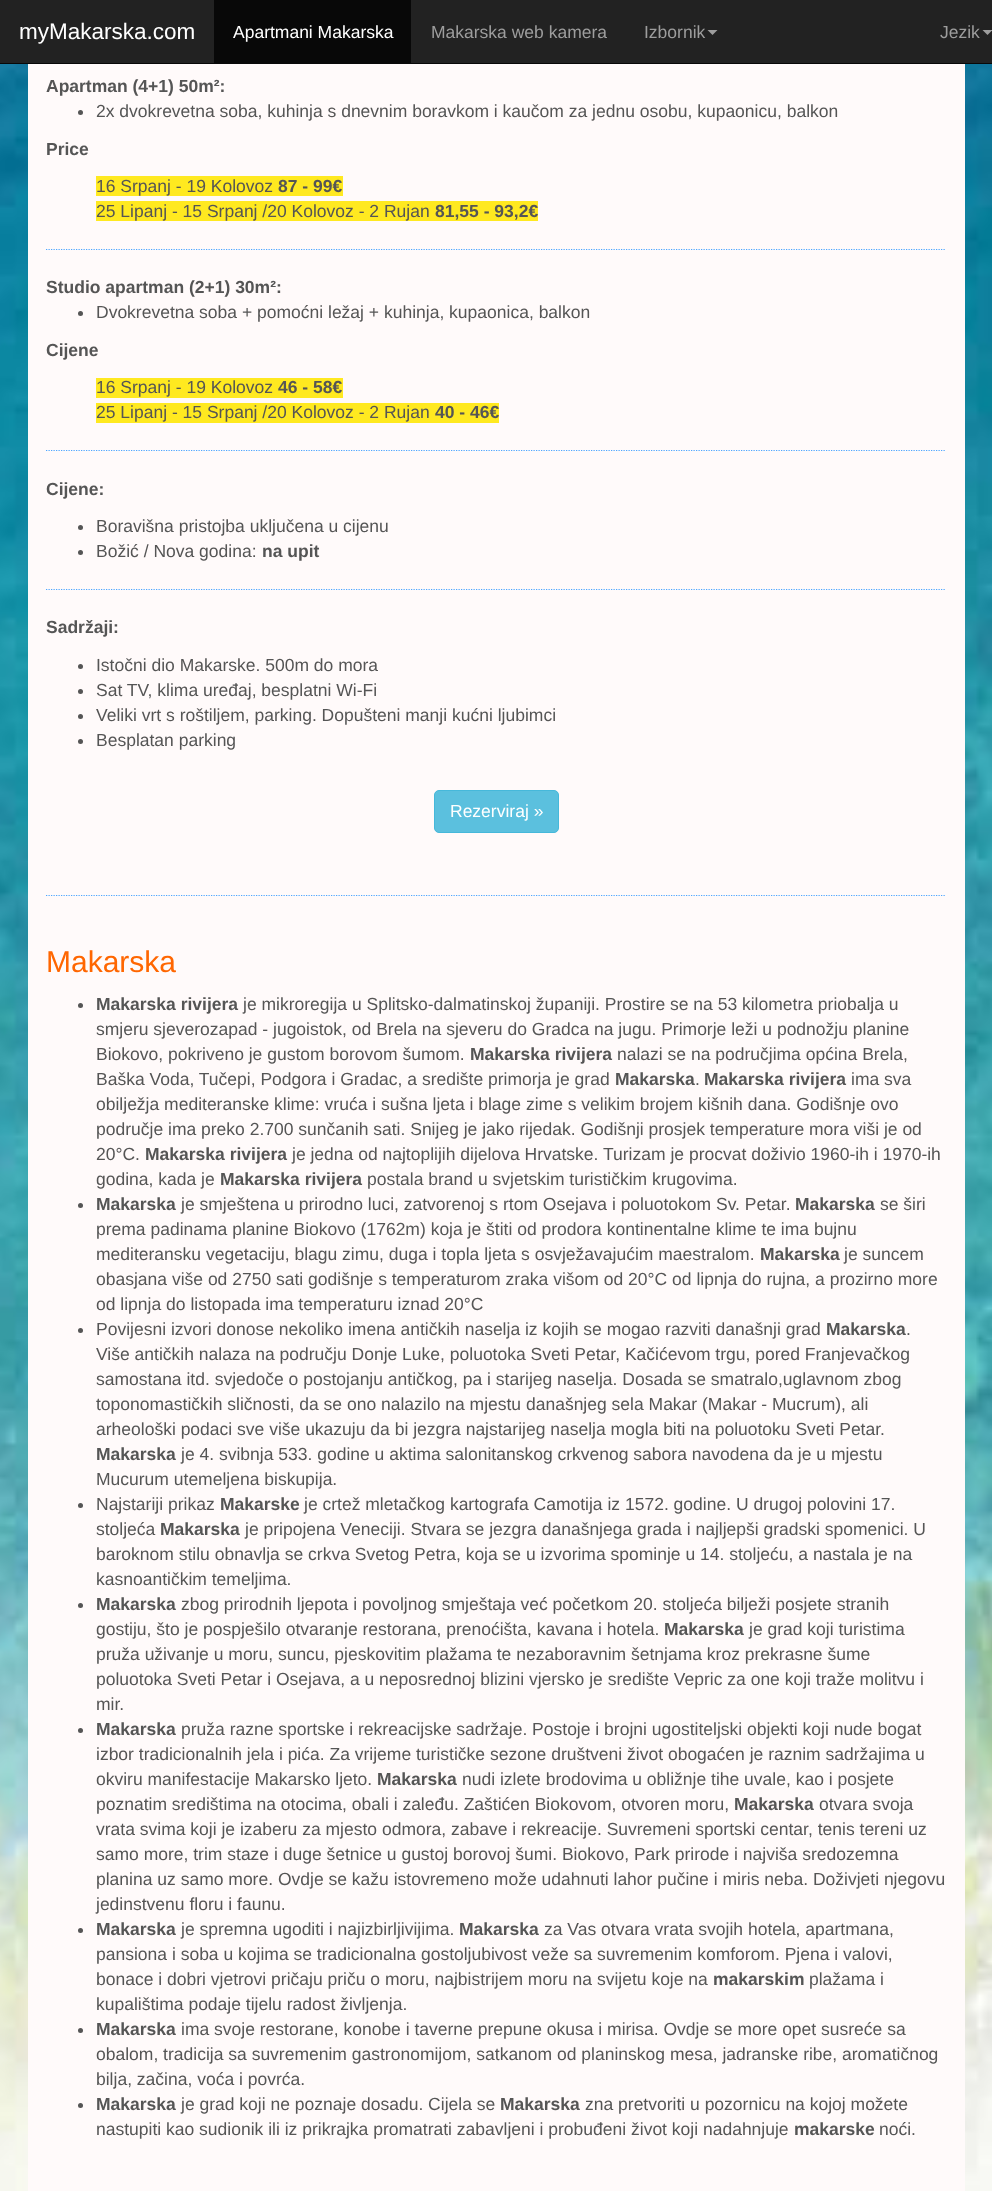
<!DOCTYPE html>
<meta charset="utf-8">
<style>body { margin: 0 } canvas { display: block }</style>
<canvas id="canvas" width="992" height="2191"></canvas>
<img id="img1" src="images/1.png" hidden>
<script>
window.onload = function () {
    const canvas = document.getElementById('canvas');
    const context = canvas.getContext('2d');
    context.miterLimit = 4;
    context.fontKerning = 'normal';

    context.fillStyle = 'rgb(255, 255, 255)';
    context.fillRect(0, 0, 992, 2191);
    context.drawImage(document.getElementById('img1'), 0, 64, 992, 2127);
    context.fillStyle = 'rgb(255, 250, 250)';
    context.fillRect(28, 64, 937, 2127);
    context.fillStyle = 'rgb(34, 34, 34)';
    context.fillRect(0, 0, 992, 63);
    context.fillStyle = 'rgb(8, 8, 8)';
    context.fillRect(0, 63, 992, 1);
    context.fillRect(214, 0, 197, 63);
    context.fillStyle = 'rgb(157, 157, 157)';
    context.beginPath();
    context.moveTo(707.5, 30);
    context.lineTo(717.5, 30);
    context.lineTo(712.5, 35);
    context.closePath();
    context.fill();
    context.beginPath();
    context.moveTo(982.5, 30);
    context.lineTo(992.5, 30);
    context.lineTo(987.5, 35);
    context.closePath();
    context.fill();
    context.fillStyle = 'rgb(85, 85, 85)';
    context.beginPath();
    context.arc(80.5, 112.5, 2.5, 0, 2 * Math.PI);
    context.fill();
    context.fillStyle = 'rgb(255, 233, 32)';
    context.fillRect(96, 176, 247, 20);
    context.fillRect(96, 201, 442, 20);
    context.beginPath();
    context.moveTo(46, 249.5);
    context.lineTo(946, 249.5);
    context.strokeStyle = 'rgb(77, 166, 255)';
    context.lineWidth = 1.2;
    context.setLineDash([1.25, 1.25]);
    context.stroke();
    context.fillStyle = 'rgb(85, 85, 85)';
    context.beginPath();
    context.arc(80.5, 313.5, 2.5, 0, 2 * Math.PI);
    context.fill();
    context.fillStyle = 'rgb(255, 233, 32)';
    context.fillRect(96, 378, 247, 20);
    context.fillRect(96, 403, 403, 20);
    context.beginPath();
    context.moveTo(46, 450.5);
    context.lineTo(946, 450.5);
    context.stroke();
    context.fillStyle = 'rgb(85, 85, 85)';
    context.beginPath();
    context.arc(80.5, 527.5, 2.5, 0, 2 * Math.PI);
    context.fill();
    context.beginPath();
    context.arc(80.5, 552.5, 2.5, 0, 2 * Math.PI);
    context.fill();
    context.beginPath();
    context.moveTo(46, 589.5);
    context.lineTo(946, 589.5);
    context.stroke();
    context.beginPath();
    context.arc(80.5, 666.5, 2.5, 0, 2 * Math.PI);
    context.fill();
    context.beginPath();
    context.arc(80.5, 691.5, 2.5, 0, 2 * Math.PI);
    context.fill();
    context.beginPath();
    context.arc(80.5, 716.5, 2.5, 0, 2 * Math.PI);
    context.fill();
    context.beginPath();
    context.arc(80.5, 741.5, 2.5, 0, 2 * Math.PI);
    context.fill();
    context.fillStyle = 'rgb(91, 192, 222)';
    context.beginPath();
    context.roundRect(434.5, 790.5, 124, 42, 4.5);
    context.fill();
    context.strokeStyle = 'rgb(70, 184, 218)';
    context.lineWidth = 1;
    context.setLineDash([]);
    context.stroke();
    context.beginPath();
    context.moveTo(46, 895.5);
    context.lineTo(946, 895.5);
    context.strokeStyle = 'rgb(77, 166, 255)';
    context.lineWidth = 1.2;
    context.setLineDash([1.25, 1.25]);
    context.stroke();
    context.fillStyle = 'rgb(85, 85, 85)';
    context.beginPath();
    context.arc(80.5, 1005.5, 2.5, 0, 2 * Math.PI);
    context.fill();
    context.beginPath();
    context.arc(80.5, 1205.5, 2.5, 0, 2 * Math.PI);
    context.fill();
    context.beginPath();
    context.arc(80.5, 1330.5, 2.5, 0, 2 * Math.PI);
    context.fill();
    context.beginPath();
    context.arc(80.5, 1505.5, 2.5, 0, 2 * Math.PI);
    context.fill();
    context.beginPath();
    context.arc(80.5, 1605.5, 2.5, 0, 2 * Math.PI);
    context.fill();
    context.beginPath();
    context.arc(80.5, 1730.5, 2.5, 0, 2 * Math.PI);
    context.fill();
    context.beginPath();
    context.arc(80.5, 1930.5, 2.5, 0, 2 * Math.PI);
    context.fill();
    context.beginPath();
    context.arc(80.5, 2030.5, 2.5, 0, 2 * Math.PI);
    context.fill();
    context.beginPath();
    context.arc(80.5, 2105.5, 2.5, 0, 2 * Math.PI);
    context.fill();
    context.font = '22.5px Liberation Sans';
    context.fillStyle = 'rgb(255, 255, 255)';
    context.fillText('myMakarska.com', 19, 39);
    context.font = '17.5px Liberation Sans';
    context.fillText('Apartmani Makarska', 233, 38);
    context.fillStyle = 'rgb(157, 157, 157)';
    context.fillText('Makarska web kamera', 431, 38);
    context.fillText('Izbornik', 644, 38);
    context.fillText('Jezik', 940, 38);
    context.font = 'bold 17.5px Liberation Sans';
    context.fillStyle = 'rgb(85, 85, 85)';
    context.fillText('Apartman (4+1) 50m²:', 46, 92);
    context.font = '17.5px Liberation Sans';
    context.fillText('2x dvokrevetna soba, kuhinja s dnevnim boravkom i kaučom za jednu osobu, kupaonicu, balkon', 96, 117);
    context.font = 'bold 17.5px Liberation Sans';
    context.fillText('Price', 46, 155);
    context.font = '17.5px Liberation Sans';
    context.fillText('16 Srpanj - 19 Kolovoz', 96, 192);
    context.font = 'bold 17.5px Liberation Sans';
    context.fillText('87 - 99€', 278, 192);
    context.font = '17.5px Liberation Sans';
    context.fillText('25 Lipanj - 15 Srpanj /20 Kolovoz - 2 Rujan', 96, 217);
    context.font = 'bold 17.5px Liberation Sans';
    context.fillText('81,55 - 93,2€', 435, 217);
    context.fillText('Studio apartman (2+1) 30m²:', 46, 293);
    context.font = '17.5px Liberation Sans';
    context.fillText('Dvokrevetna soba + pomoćni ležaj + kuhinja, kupaonica, balkon', 96, 318);
    context.font = 'bold 17.5px Liberation Sans';
    context.fillText('Cijene', 46, 356);
    context.font = '17.5px Liberation Sans';
    context.fillText('16 Srpanj - 19 Kolovoz', 96, 393);
    context.font = 'bold 17.5px Liberation Sans';
    context.fillText('46 - 58€', 278, 393);
    context.font = '17.5px Liberation Sans';
    context.fillText('25 Lipanj - 15 Srpanj /20 Kolovoz - 2 Rujan', 96, 418);
    context.font = 'bold 17.5px Liberation Sans';
    context.fillText('40 - 46€', 435, 418);
    context.fillText('Cijene:', 46, 495);
    context.font = '17.5px Liberation Sans';
    context.fillText('Boravišna pristojba uključena u cijenu', 96, 532);
    context.fillText('Božić / Nova godina:', 96, 557);
    context.font = 'bold 17.5px Liberation Sans';
    context.fillText('na upit', 262, 557);
    context.fillText('Sadržaji:', 46, 633);
    context.font = '17.5px Liberation Sans';
    context.fillText('Istočni dio Makarske. 500m do mora', 96, 671);
    context.fillText('Sat TV, klima uređaj, besplatni Wi-Fi', 96, 696);
    context.fillText('Veliki vrt s roštiljem, parking. Dopušteni manji kućni ljubimci', 96, 721);
    context.fillText('Besplatan parking', 96, 746);
    context.fillStyle = 'rgb(255, 255, 255)';
    context.fillText('Rezerviraj »', 450, 817);
    context.font = '30px Liberation Sans';
    context.fillStyle = 'rgb(255, 102, 0)';
    context.fillText('Makarska', 46, 972);
    context.font = 'bold 17.5px Liberation Sans';
    context.fillStyle = 'rgb(85, 85, 85)';
    context.fillText('Makarska rivijera', 96, 1010);
    context.font = '17.5px Liberation Sans';
    context.fillText('je mikroregija u Splitsko-dalmatinskoj županiji. Prostire se na 53 kilometra priobalja u', 243, 1010);
    context.fillText('smjeru sjeverozapad - jugoistok, od Brela na sjeveru do Gradca na jugu. Primorje leži u podnožju planine', 96, 1035);
    context.fillText('Biokovo, pokriveno je gustom borovom šumom.', 96, 1060);
    context.font = 'bold 17.5px Liberation Sans';
    context.fillText('Makarska rivijera', 470, 1060);
    context.font = '17.5px Liberation Sans';
    context.fillText('nalazi se na područjima općina Brela,', 617, 1060);
    context.fillText('Baška Voda, Tučepi, Podgora i Gradac, a središte primorja je grad', 96, 1085);
    context.font = 'bold 17.5px Liberation Sans';
    context.fillText('Makarska', 615, 1085);
    context.font = '17.5px Liberation Sans';
    context.fillText('.', 695, 1085);
    context.font = 'bold 17.5px Liberation Sans';
    context.fillText('Makarska rivijera', 704, 1085);
    context.font = '17.5px Liberation Sans';
    context.fillText('ima sva', 851, 1085);
    context.fillText('obilježja mediteranske klime: vruća i sušna ljeta i blage zime s velikim brojem kišnih dana. Godišnje ovo', 96, 1110);
    context.fillText('područje ima preko 2.700 sunčanih sati. Snijeg je jako rijedak. Godišnji prosjek temperature mora viši je od', 96, 1135);
    context.fillText('20°C.', 96, 1160);
    context.font = 'bold 17.5px Liberation Sans';
    context.fillText('Makarska rivijera', 145, 1160);
    context.font = '17.5px Liberation Sans';
    context.fillText('je jedna od najtoplijih dijelova Hrvatske.', 292, 1160);
    context.fillText('Turizam je procvat doživio 1960-ih i 1970-ih', 603, 1160);
    context.fillText('godina, kada je', 96, 1185);
    context.font = 'bold 17.5px Liberation Sans';
    context.fillText('Makarska rivijera', 220, 1185);
    context.font = '17.5px Liberation Sans';
    context.fillText('postala brand u svjetskim turističkim krugovima.', 367, 1185);
    context.font = 'bold 17.5px Liberation Sans';
    context.fillText('Makarska', 96, 1210);
    context.font = '17.5px Liberation Sans';
    context.fillText('je smještena u prirodno luci, zatvorenoj s rtom Osejava i poluotokom Sv. Petar.', 181, 1210);
    context.font = 'bold 17.5px Liberation Sans';
    context.fillText('Makarska', 795, 1210);
    context.font = '17.5px Liberation Sans';
    context.fillText('se širi', 880, 1210);
    context.fillText('prema padinama planine Biokovo (1762m) koja je štiti od prodora kontinentalne klime te ima bujnu', 96, 1235);
    context.fillText('mediteransku vegetaciju, blagu zimu, duga i topla ljeta s osvježavajućim maestralom.', 96, 1260);
    context.font = 'bold 17.5px Liberation Sans';
    context.fillText('Makarska', 760, 1260);
    context.font = '17.5px Liberation Sans';
    context.fillText('je suncem', 844, 1260);
    context.fillText('obasjana više od 2750 sati godišnje s temperaturom zraka višom od 20°C od lipnja do rujna, a prozirno more', 96, 1285);
    context.fillText('od lipnja do listopada ima temperaturu iznad 20°C', 96, 1310);
    context.fillText('Povijesni izvori donose nekoliko imena antičkih naselja iz kojih se mogao razviti današnji grad', 96, 1335);
    context.font = 'bold 17.5px Liberation Sans';
    context.fillText('Makarska', 826, 1335);
    context.font = '17.5px Liberation Sans';
    context.fillText('.', 906, 1335);
    context.fillText('Više antičkih nalaza na području Donje Luke, poluotoka Sveti Petar, Kačićevom trgu, pored Franjevačkog', 96, 1360);
    context.fillText('samostana itd. svjedoče o postojanju antičkog, pa i starijeg naselja. Dosada se smatralo,uglavnom zbog', 96, 1385);
    context.fillText('toponomastičkih sličnosti, da se ono nalazilo na mjestu današnjeg sela Makar (Makar - Mucrum), ali', 96, 1410);
    context.fillText('arheološki podaci sve više ukazuju da bi jezgra najstarijeg naselja mogla biti na poluotoku Sveti Petar.', 96, 1435);
    context.font = 'bold 17.5px Liberation Sans';
    context.fillText('Makarska', 96, 1460);
    context.font = '17.5px Liberation Sans';
    context.fillText('je 4. svibnja 533. godine u aktima salonitanskog crkvenog sabora navodena da je u mjestu', 181, 1460);
    context.fillText('Mucurum utemeljena biskupija.', 96, 1485);
    context.fillText('Najstariji prikaz', 96, 1510);
    context.font = 'bold 17.5px Liberation Sans';
    context.fillText('Makarske', 220, 1510);
    context.font = '17.5px Liberation Sans';
    context.fillText('je crtež mletačkog kartografa Camotija iz 1572. godine. U drugoj polovini 17.', 304, 1510);
    context.fillText('stoljeća', 96, 1535);
    context.font = 'bold 17.5px Liberation Sans';
    context.fillText('Makarska', 160, 1535);
    context.font = '17.5px Liberation Sans';
    context.fillText('je pripojena Veneciji. Stvara se jezgra današnjega grada i najljepši gradski spomenici. U', 245, 1535);
    context.fillText('baroknom stilu obnavlja se crkva Svetog Petra, koja se u izvorima spominje u 14. stoljeću, a nastala je na', 96, 1560);
    context.fillText('kasnoantičkim temeljima.', 96, 1585);
    context.font = 'bold 17.5px Liberation Sans';
    context.fillText('Makarska', 96, 1610);
    context.font = '17.5px Liberation Sans';
    context.fillText('zbog prirodnih ljepota i povoljnog smještaja već početkom 20. stoljeća bilježi posjete stranih', 181, 1610);
    context.fillText('gostiju, što je pospješilo otvaranje restorana, prenoćišta, kavana i hotela.', 96, 1635);
    context.font = 'bold 17.5px Liberation Sans';
    context.fillText('Makarska', 664, 1635);
    context.font = '17.5px Liberation Sans';
    context.fillText('je grad koji turistima', 749, 1635);
    context.fillText('pruža uživanje u moru, suncu, pjeskovitim plažama te nezaboravnim šetnjama kroz prekrasne šume', 96, 1660);
    context.fillText('poluotoka Sveti Petar i Osejava, a u neposrednoj blizini vjersko je središte Vepric za one koji traže molitvu i', 96, 1685);
    context.fillText('mir.', 96, 1710);
    context.font = 'bold 17.5px Liberation Sans';
    context.fillText('Makarska', 96, 1735);
    context.font = '17.5px Liberation Sans';
    context.fillText('pruža razne sportske i rekreacijske sadržaje. Postoje i brojni ugostiteljski objekti koji nude bogat', 181, 1735);
    context.fillText('izbor tradicionalnih jela i pića. Za vrijeme turističke sezone društveni život obogaćen je raznim sadržajima u', 96, 1760);
    context.fillText('okviru manifestacije Makarsko ljeto.', 96, 1785);
    context.font = 'bold 17.5px Liberation Sans';
    context.fillText('Makarska', 377, 1785);
    context.font = '17.5px Liberation Sans';
    context.fillText('nudi izlete brodovima u obližnje tihe uvale, kao i posjete', 462, 1785);
    context.fillText('poznatim središtima na otocima, obali i zaleđu. Zaštićen Biokovom, otvoren moru,', 96, 1810);
    context.font = 'bold 17.5px Liberation Sans';
    context.fillText('Makarska', 734, 1810);
    context.font = '17.5px Liberation Sans';
    context.fillText('otvara svoja', 819, 1810);
    context.fillText('vrata svima koji je izaberu za mjesto odmora, zabave i rekreacije. Suvremeni sportski centar, tenis tereni uz', 96, 1835);
    context.fillText('samo more, trim staze i duge šetnice u gustoj borovoj šumi. Biokovo, Park prirode i najviša sredozemna', 96, 1860);
    context.fillText('planina uz samo more. Ovdje se kažu istovremeno može udahnuti lahor pučine i miris neba. Doživjeti njegovu', 96, 1885);
    context.fillText('jedinstvenu floru i faunu.', 96, 1910);
    context.font = 'bold 17.5px Liberation Sans';
    context.fillText('Makarska', 96, 1935);
    context.font = '17.5px Liberation Sans';
    context.fillText('je spremna ugoditi i najizbirljivijima.', 181, 1935);
    context.font = 'bold 17.5px Liberation Sans';
    context.fillText('Makarska', 459, 1935);
    context.font = '17.5px Liberation Sans';
    context.fillText('za Vas otvara vrata svojih hotela, apartmana,', 544, 1935);
    context.fillText('pansiona i soba u kojima se tradicionalna gostoljubivost veže sa suvremenim komforom. Pjena i valovi,', 96, 1960);
    context.fillText('bonace i dobri vjetrovi pričaju priču o moru, najbistrijem moru na svijetu koje na', 96, 1985);
    context.font = 'bold 17.5px Liberation Sans';
    context.fillText('makarskim', 713, 1985);
    context.font = '17.5px Liberation Sans';
    context.fillText('plažama i', 809, 1985);
    context.fillText('kupalištima podaje tijelu radost življenja.', 96, 2010);
    context.font = 'bold 17.5px Liberation Sans';
    context.fillText('Makarska', 96, 2035);
    context.font = '17.5px Liberation Sans';
    context.fillText('ima svoje restorane, konobe i taverne prepune okusa i mirisa. Ovdje se more opet susreće sa', 181, 2035);
    context.fillText('obalom, tradicija sa suvremenim gastronomijom, satkanom od planinskog mesa, jadranske ribe, aromatičnog', 96, 2060);
    context.fillText('bilja, začina, voća i povrća.', 96, 2085);
    context.font = 'bold 17.5px Liberation Sans';
    context.fillText('Makarska', 96, 2110);
    context.font = '17.5px Liberation Sans';
    context.fillText('je grad koji ne poznaje dosadu. Cijela se', 181, 2110);
    context.font = 'bold 17.5px Liberation Sans';
    context.fillText('Makarska', 500, 2110);
    context.font = '17.5px Liberation Sans';
    context.fillText('zna pretvoriti u pozornicu na kojoj možete', 585, 2110);
    context.fillText('nastupiti kao sudionik ili iz prikrajka promatrati zabavljeni i probuđeni život koji nadahnjuje', 96, 2135);
    context.font = 'bold 17.5px Liberation Sans';
    context.fillText('makarske', 794, 2135);
    context.font = '17.5px Liberation Sans';
    context.fillText('noći.', 879, 2135);
};
</script>
